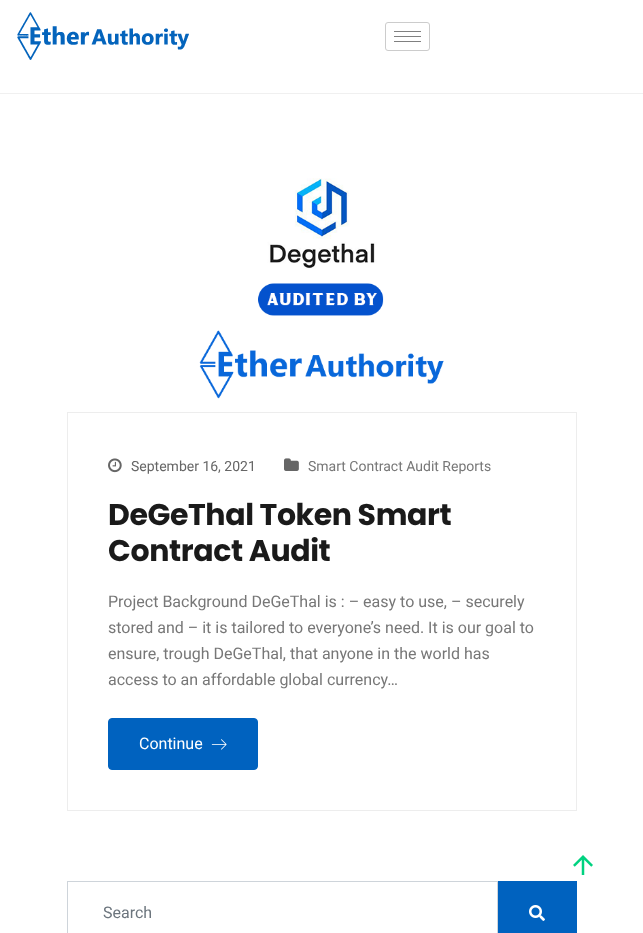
<!DOCTYPE html>
<meta charset="utf-8">
<style>body { margin: 0 } canvas { display: block }</style>
<canvas id="canvas" width="643" height="933"></canvas>
<img id="img1" src="images/1.png" hidden>
<img id="img2" src="images/2.png" hidden>
<img id="img3" src="images/3.png" hidden>
<img id="img4" src="images/4.png" hidden>
<img id="img5" src="images/5.png" hidden>
<img id="img6" src="images/6.png" hidden>
<img id="img7" src="images/7.png" hidden>
<script>
window.onload = function () {
    const canvas = document.getElementById('canvas');
    const context = canvas.getContext('2d');
    context.miterLimit = 4;
    context.fontKerning = 'normal';

    context.fillStyle = 'rgb(255, 255, 255)';
    context.fillRect(0, 0, 643, 933);
    context.fillStyle = 'rgb(240, 240, 240)';
    context.fillRect(0, 93, 643, 1);
    context.drawImage(document.getElementById('img1'), 17, 12, 172, 48);
    context.beginPath();
    context.roundRect(385.5, 22.5, 44, 28, 2.5);
    context.strokeStyle = 'rgb(204, 204, 204)';
    context.stroke();
    context.fillStyle = 'rgb(128, 128, 128)';
    context.fillRect(394, 31, 27, 1);
    context.fillRect(394, 36, 27, 1);
    context.fillRect(394, 41, 27, 1);
    context.drawImage(document.getElementById('img2'), 199, 178, 245, 221);
    context.strokeStyle = 'rgb(237, 237, 237)';
    context.strokeRect(67.5, 412.5, 509, 398);
    context.drawImage(document.getElementById('img3'), 108, 458, 14, 15);
    context.drawImage(document.getElementById('img4'), 284, 458, 15, 13);
    context.fillStyle = 'rgb(0, 98, 191)';
    context.beginPath();
    context.roundRect(108.5, 718.5, 149, 51, 3.5);
    context.fill();
    context.strokeStyle = 'rgb(0, 98, 191)';
    context.stroke();
    context.drawImage(document.getElementById('img5'), 211, 739, 16, 11);
    context.strokeStyle = 'rgb(206, 212, 218)';
    context.strokeRect(67.5, 881.5, 430, 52);
    context.fillRect(498, 881, 79, 52);
    context.drawImage(document.getElementById('img6'), 529, 905, 16, 16);
    context.drawImage(document.getElementById('img7'), 573, 855, 20, 20);
    context.font = '14px Roboto';
    context.fillStyle = 'rgb(102, 102, 102)';
    context.fillText('September 16, 2021', 131, 471);
    context.fillStyle = 'rgb(119, 119, 119)';
    context.fillText('Smart Contract Audit Reports', 308, 471);
    context.letterSpacing = '-0.4px';
    context.font = 'bold 30px Poppins';
    context.fillStyle = 'rgb(26, 26, 26)';
    context.fillText('DeGeThal Token Smart', 108, 525);
    context.fillText('Contract Audit', 108, 561);
    context.letterSpacing = '0px';
    context.font = '16px Roboto';
    context.fillStyle = 'rgb(119, 119, 119)';
    context.fillText('Project Background DeGeThal is : – easy to use, – securely', 108, 607);
    context.fillText('stored and – it is tailored to everyone’s need. It is our goal to', 108, 633);
    context.fillText('ensure, trough DeGeThal, that anyone in the world has', 108, 659);
    context.fillText('access to an affordable global currency…', 108, 685);
    context.fillStyle = 'rgb(255, 255, 255)';
    context.fillText('Continue', 139, 749);
    context.fillStyle = 'rgb(108, 117, 125)';
    context.fillText('Search', 103, 918);
};
</script>
